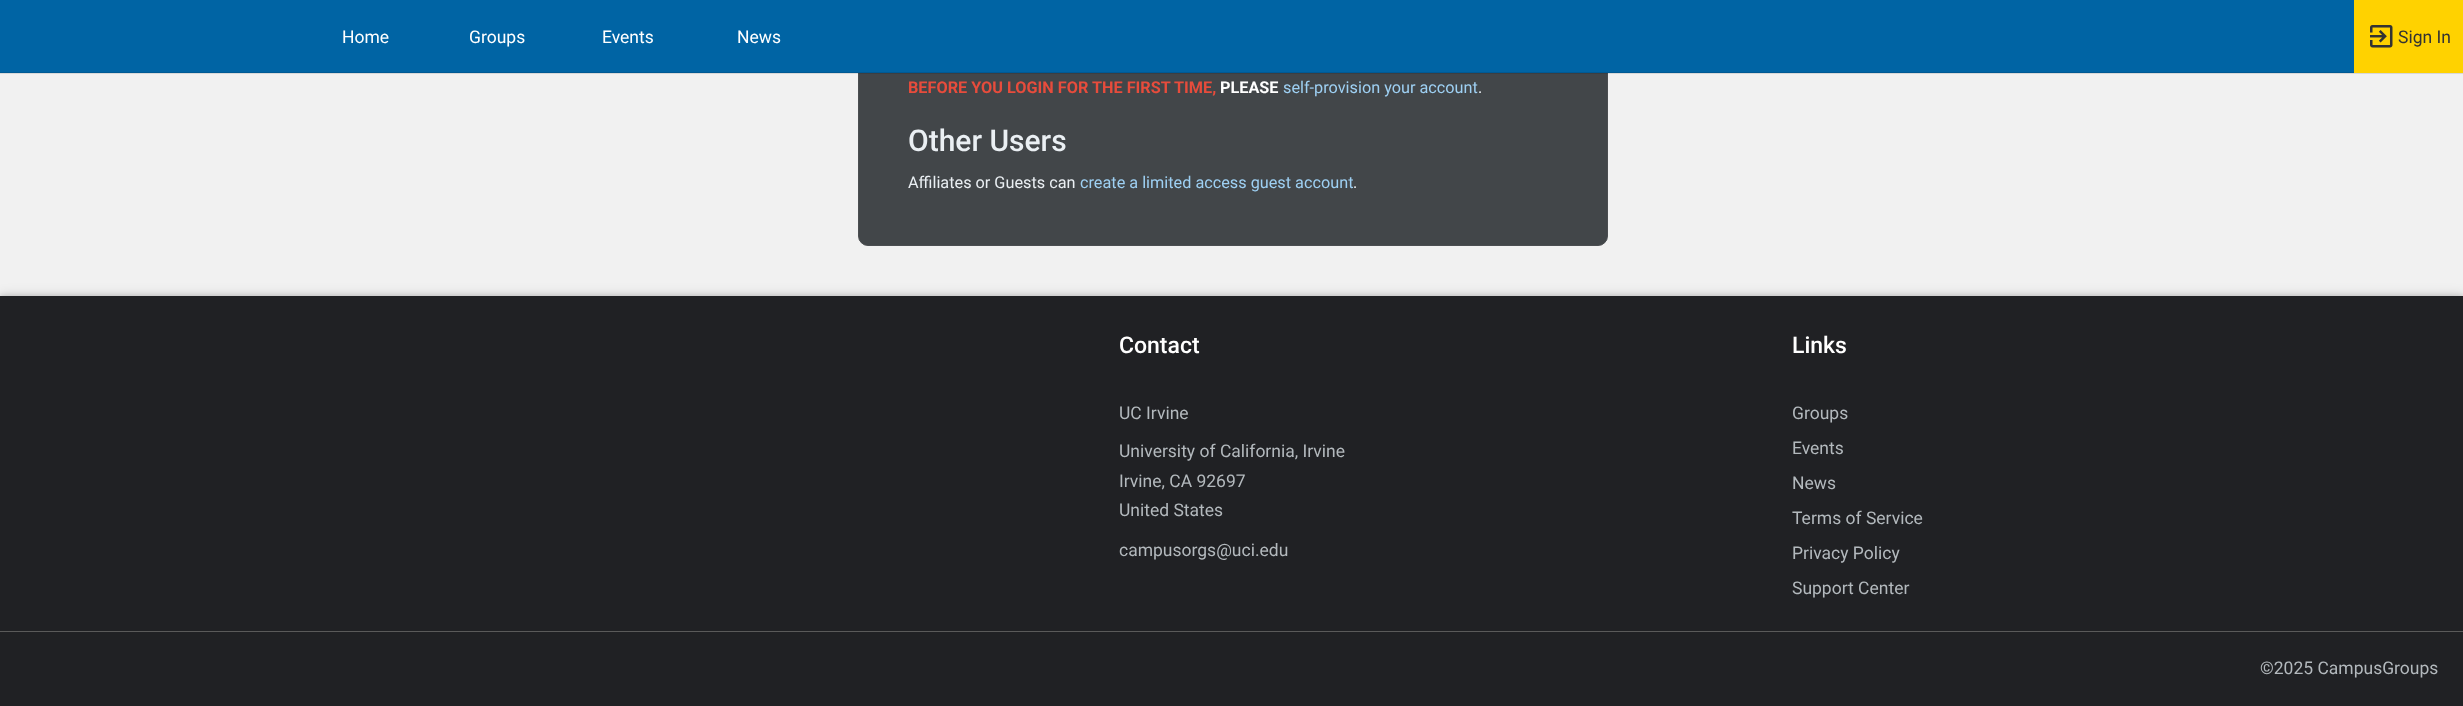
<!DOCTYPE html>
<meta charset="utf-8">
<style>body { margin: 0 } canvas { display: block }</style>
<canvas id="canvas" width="2463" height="706"></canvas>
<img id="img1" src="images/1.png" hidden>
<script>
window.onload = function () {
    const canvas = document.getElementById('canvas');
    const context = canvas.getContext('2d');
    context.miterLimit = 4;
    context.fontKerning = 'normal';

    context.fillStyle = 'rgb(241, 241, 241)';
    context.fillRect(0, 0, 2463, 706);
    context.fillStyle = 'rgb(66, 70, 73)';
    context.beginPath();
    context.roundRect(858.5, -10.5, 749, 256, 9.5);
    context.fill();
    context.strokeStyle = 'rgb(75, 78, 81)';
    context.stroke();
    context.fillStyle = 'rgb(0, 100, 164)';
    context.fillRect(0, 0, 2354, 73);
    context.fillStyle = 'rgb(0, 90, 148)';
    context.fillRect(0, 72, 300, 1);
    context.fillStyle = 'rgba(0, 0, 0, 0.1)';
    context.beginPath();
    context.moveTo(300, 72);
    context.lineTo(300, 74);
    context.lineTo(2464, 74);
    context.lineTo(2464, 1);
    context.lineTo(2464, 72);
    context.closePath();
    context.fill();
    context.fillStyle = 'rgb(255, 210, 0)';
    context.fillRect(2354, 0, 109, 73);
    context.drawImage(document.getElementById('img1'), 2370, 25, 23, 23);
    context.fillStyle = 'rgb(217, 217, 217)';
    context.fillRect(0, 73, 300, 1);
    context.fillStyle = 'rgba(0, 0, 0, 0.14)';
    context.filter = 'blur(6px)';
    context.beginPath();
    context.rect(0, 295, 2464, 410);
    context.fill();
    context.filter = 'none';
    context.fillStyle = 'rgba(0, 0, 0, 0.1)';
    context.filter = 'blur(2px)';
    context.beginPath();
    context.rect(0, 295, 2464, 410);
    context.fill();
    context.filter = 'none';
    context.fillStyle = 'rgb(32, 33, 36)';
    context.fillRect(0, 296, 2463, 410);
    context.fillStyle = 'rgb(90, 90, 90)';
    context.fillRect(0, 631, 2463, 1);
    context.font = '17.5px Roboto';
    context.fillStyle = 'rgb(255, 255, 255)';
    context.fillText('Home', 342, 43);
    context.fillText('Groups', 469, 43);
    context.fillText('Events', 602, 43);
    context.fillText('News', 737, 43);
    context.fillStyle = 'rgb(51, 51, 51)';
    context.fillText('Sign In', 2398, 43);
    context.font = 'bold 16.25px Roboto';
    context.fillStyle = 'rgb(231, 76, 60)';
    context.fillText('BEFORE YOU LOGIN FOR THE FIRST TIME,', 908, 93);
    context.fillStyle = 'rgb(255, 255, 255)';
    context.fillText('PLEASE', 1220, 93);
    context.font = '16.25px Roboto';
    context.fillStyle = 'rgb(158, 208, 243)';
    context.fillText('self-provision your account', 1283, 93);
    context.fillStyle = 'rgb(234, 239, 243)';
    context.fillText('.', 1478, 93);
    context.font = '500 30px Roboto';
    context.fillText('Other Users', 908, 151);
    context.font = '16.25px Roboto';
    context.fillText('Affiliates or Guests can', 908, 188);
    context.fillStyle = 'rgb(158, 208, 243)';
    context.fillText('create a limited access guest account', 1080, 188);
    context.fillStyle = 'rgb(234, 239, 243)';
    context.fillText('.', 1353, 188);
    context.font = '500 23px Roboto';
    context.fillStyle = 'rgb(255, 255, 255)';
    context.fillText('Contact', 1119, 353);
    context.font = '17.5px Roboto';
    context.fillStyle = 'rgb(179, 185, 189)';
    context.fillText('UC Irvine', 1119, 419);
    context.fillText('University of California, Irvine', 1119, 457);
    context.fillText('Irvine, CA 92697', 1119, 487);
    context.fillText('United States', 1119, 516);
    context.fillText('campusorgs@uci.edu', 1119, 556);
    context.font = '500 23px Roboto';
    context.fillStyle = 'rgb(255, 255, 255)';
    context.fillText('Links', 1792, 353);
    context.font = '17.5px Roboto';
    context.fillStyle = 'rgb(179, 185, 189)';
    context.fillText('Groups', 1792, 419);
    context.fillText('Events', 1792, 454);
    context.fillText('News', 1792, 489);
    context.fillText('Terms of Service', 1792, 524);
    context.fillText('Privacy Policy', 1792, 559);
    context.fillText('Support Center', 1792, 594);
    context.fillText('©2025 CampusGroups', 2260, 674);
};
</script>
